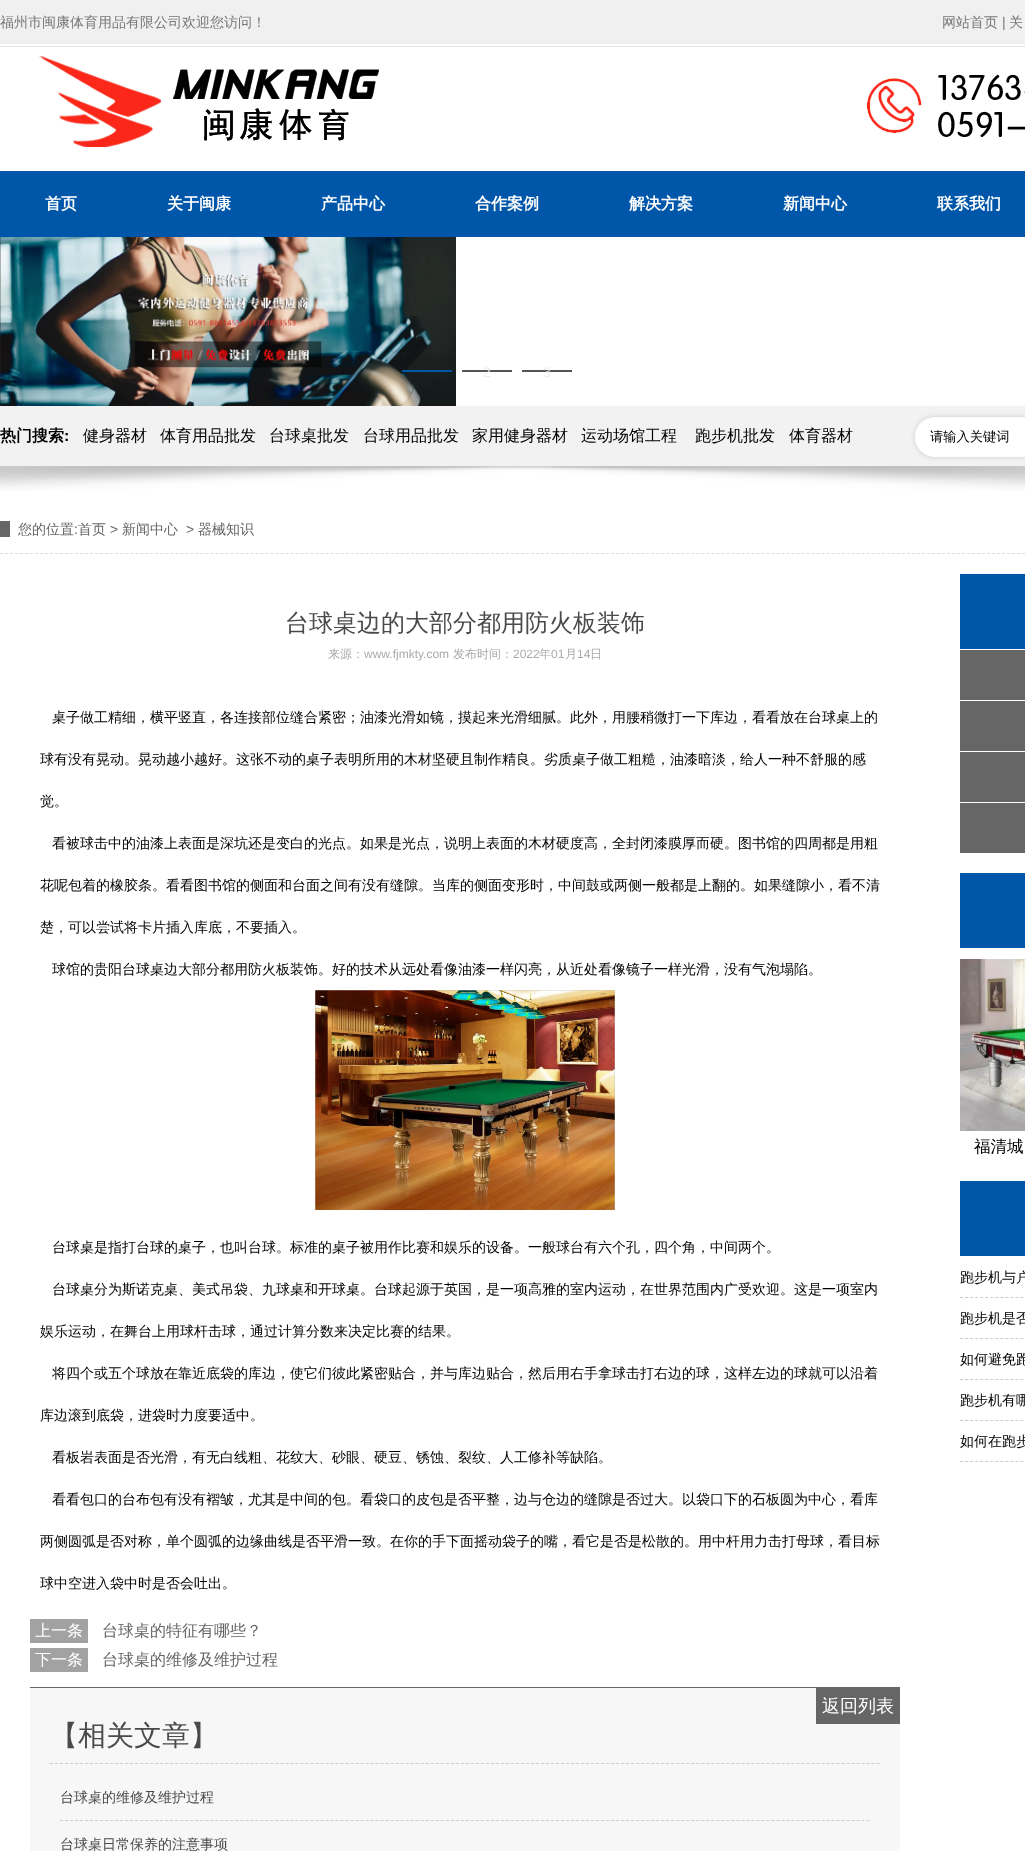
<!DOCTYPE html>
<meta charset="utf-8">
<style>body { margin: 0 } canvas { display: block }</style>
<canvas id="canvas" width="1025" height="1851"></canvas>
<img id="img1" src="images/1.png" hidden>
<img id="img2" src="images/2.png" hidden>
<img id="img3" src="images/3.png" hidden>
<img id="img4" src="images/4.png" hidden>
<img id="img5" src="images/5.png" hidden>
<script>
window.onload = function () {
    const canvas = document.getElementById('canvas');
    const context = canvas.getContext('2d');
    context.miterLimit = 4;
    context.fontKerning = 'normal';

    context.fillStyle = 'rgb(255, 255, 255)';
    context.fillRect(0, 0, 1025, 1851);
    context.fillStyle = 'rgb(240, 240, 240)';
    context.fillRect(0, 0, 1025, 44);
    context.fillStyle = 'rgb(228, 228, 228)';
    context.fillRect(0, 46, 1025, 1);
    context.drawImage(document.getElementById('img1'), 39, 56, 986, 91);
    context.fillStyle = 'rgb(0, 86, 168)';
    context.fillRect(0, 171, 1025, 66);
    context.drawImage(document.getElementById('img2'), 0, 237, 456, 169);
    context.fillRect(402, 370, 50, 2);
    context.fillStyle = 'rgb(85, 85, 85)';
    context.fillRect(462, 370, 50, 2);
    context.fillRect(522, 370, 50, 2);
    context.fillStyle = 'rgb(242, 242, 242)';
    context.fillRect(0, 406, 1025, 60);
    context.fillStyle = 'rgb(204, 204, 204)';
    context.filter = 'blur(2.5px)';
    context.beginPath();
    context.roundRect(915, 417, 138, 40, 20);
    context.fill();
    context.filter = 'none';
    context.fillStyle = 'rgb(255, 255, 255)';
    context.beginPath();
    context.moveTo(935, 417);
    context.lineTo(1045, 417);
    context.lineTo(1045, 457);
    context.lineTo(935, 457);
    context.bezierCurveTo(924, 457, 915, 448, 915, 437);
    context.bezierCurveTo(915, 426, 924, 417, 935, 417);
    context.closePath();
    context.fill();
    context.drawImage(document.getElementById('img3'), 0, 466, 1025, 25);
    context.beginPath();
    context.moveTo(0, 553.5);
    context.lineTo(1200, 553.5);
    context.strokeStyle = 'rgb(220, 220, 220)';
    context.setLineDash([3, 2.01]);
    context.stroke();
    context.fillStyle = 'rgb(102, 102, 102)';
    context.fillRect(0, 521, 10, 16);
    context.drawImage(document.getElementById('img4'), 315, 990, 300, 220);
    context.fillRect(30, 1687, 870, 1);
    context.fillStyle = 'rgb(162, 162, 162)';
    context.fillRect(30, 1619, 58, 24);
    context.fillRect(30, 1648, 58, 24);
    context.fillStyle = 'rgb(247, 247, 247)';
    context.fillRect(30, 1688, 870, 163);
    context.fillStyle = 'rgb(102, 102, 102)';
    context.fillRect(816, 1688, 84, 36);
    context.beginPath();
    context.moveTo(50, 1763.5);
    context.lineTo(880, 1763.5);
    context.strokeStyle = 'rgb(204, 204, 204)';
    context.stroke();
    context.beginPath();
    context.moveTo(60, 1820.5);
    context.lineTo(870, 1820.5);
    context.stroke();
    context.fillStyle = 'rgb(0, 86, 168)';
    context.fillRect(960, 574, 65, 75);
    context.fillStyle = 'rgb(102, 102, 102)';
    context.fillRect(960, 650, 65, 50);
    context.fillRect(960, 701, 65, 50);
    context.fillRect(960, 752, 65, 50);
    context.fillRect(960, 803, 65, 50);
    context.fillStyle = 'rgb(0, 86, 168)';
    context.fillRect(960, 873, 65, 75);
    context.drawImage(document.getElementById('img5'), 960, 959, 65, 172);
    context.fillRect(960, 1181, 65, 75);
    context.beginPath();
    context.moveTo(960, 1297.5);
    context.lineTo(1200, 1297.5);
    context.setLineDash([3, 2.04]);
    context.stroke();
    context.beginPath();
    context.moveTo(960, 1338.5);
    context.lineTo(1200, 1338.5);
    context.stroke();
    context.beginPath();
    context.moveTo(960, 1379.5);
    context.lineTo(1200, 1379.5);
    context.stroke();
    context.beginPath();
    context.moveTo(960, 1420.5);
    context.lineTo(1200, 1420.5);
    context.stroke();
    context.beginPath();
    context.moveTo(960, 1461.5);
    context.lineTo(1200, 1461.5);
    context.stroke();
    context.font = '500 14px WenQuanYi Zen Hei';
    context.fillStyle = 'rgb(119, 119, 119)';
    context.fillText('福州市闽康体育用品有限公司欢迎您访问！', 0, 27);
    context.fillText('网站首页', 942, 27);
    context.font = '14px Liberation Sans';
    context.fillText('|', 1002, 27);
    context.font = '500 14px WenQuanYi Zen Hei';
    context.fillText('关', 1009, 27);
    context.font = 'bold 16px WenQuanYi Zen Hei';
    context.fillStyle = 'rgb(255, 255, 255)';
    context.fillText('首页', 45, 209);
    context.fillText('关于闽康', 167, 209);
    context.fillText('产品中心', 321, 209);
    context.fillText('合作案例', 475, 209);
    context.fillText('解决方案', 629, 209);
    context.fillText('新闻中心', 783, 209);
    context.fillText('联系我们', 937, 209);
    context.font = '14px Liberation Sans';
    context.fillStyle = 'rgb(236, 236, 236)';
    context.fillText('2', 483, 377);
    context.fillText('3', 543, 377);
    context.font = 'bold 16px WenQuanYi Zen Hei';
    context.fillStyle = 'rgb(0, 0, 0)';
    context.fillText('热门搜索', 0, 441);
    context.font = 'bold 16px Liberation Sans';
    context.fillText(':', 64, 441);
    context.font = '500 16px WenQuanYi Zen Hei';
    context.fillText('健身器材', 83, 441);
    context.fillText('体育用品批发', 160, 441);
    context.fillText('台球桌批发', 269, 441);
    context.fillText('台球用品批发', 363, 441);
    context.fillText('家用健身器材', 472, 441);
    context.fillText('运动场馆工程', 581, 441);
    context.fillText('跑步机批发', 695, 441);
    context.fillText('体育器材', 789, 441);
    context.font = '500 13.25px WenQuanYi Zen Hei';
    context.fillText('请输入关键词', 930, 441);
    context.font = '500 14px WenQuanYi Zen Hei';
    context.fillStyle = 'rgb(102, 102, 102)';
    context.fillText('您的位置', 18, 534);
    context.font = '14px Liberation Sans';
    context.fillText(':', 74, 534);
    context.font = '500 14px WenQuanYi Zen Hei';
    context.fillText('首页', 78, 534);
    context.font = '14px Liberation Sans';
    context.fillText('>', 110, 534);
    context.font = '500 14px WenQuanYi Zen Hei';
    context.fillText('新闻中心', 122, 534);
    context.font = '14px Liberation Sans';
    context.fillText('>', 186, 534);
    context.font = '500 14px WenQuanYi Zen Hei';
    context.fillText('器械知识', 198, 534);
    context.font = '500 24px WenQuanYi Zen Hei';
    context.fillStyle = 'rgb(75, 74, 74)';
    context.fillText('台球桌边的大部分都用防火板装饰', 285, 631);
    context.font = '500 12px WenQuanYi Zen Hei';
    context.fillStyle = 'rgb(170, 170, 170)';
    context.fillText('来源：', 328, 658);
    context.font = '12px Liberation Sans';
    context.fillText('www.fjmkty.com', 364, 658);
    context.font = '500 12px WenQuanYi Zen Hei';
    context.fillText('发布时间：', 453, 658);
    context.font = '12px Liberation Sans';
    context.fillText('2022', 513, 658);
    context.font = '500 12px WenQuanYi Zen Hei';
    context.fillText('年', 539, 658);
    context.font = '12px Liberation Sans';
    context.fillText('01', 551, 658);
    context.font = '500 12px WenQuanYi Zen Hei';
    context.fillText('月', 565, 658);
    context.font = '12px Liberation Sans';
    context.fillText('14', 577, 658);
    context.font = '500 12px WenQuanYi Zen Hei';
    context.fillText('日', 590, 658);
    context.font = '500 14px WenQuanYi Zen Hei';
    context.fillStyle = 'rgb(0, 0, 0)';
    context.fillText('桌子做工精细，横平竖直，各连接部位缝合紧密；油漆光滑如镜，摸起来光滑细腻。此外，用腰稍微打一下库边，看看放在台球桌上的', 52, 722);
    context.fillText('球有没有晃动。晃动越小越好。这张不动的桌子表明所用的木材坚硬且制作精良。劣质桌子做工粗糙，油漆暗淡，给人一种不舒服的感', 40, 764);
    context.fillText('觉。', 40, 806);
    context.fillText('看被球击中的油漆上表面是深坑还是变白的光点。如果是光点，说明上表面的木材硬度高，全封闭漆膜厚而硬。图书馆的四周都是用粗', 52, 848);
    context.fillText('花呢包着的橡胶条。看看图书馆的侧面和台面之间有没有缝隙。当库的侧面变形时，中间鼓或两侧一般都是上翻的。如果缝隙小，看不清', 40, 890);
    context.fillText('楚，可以尝试将卡片插入库底，不要插入。', 40, 932);
    context.fillText('球馆的贵阳台球桌边大部分都用防火板装饰。好的技术从远处看像油漆一样闪亮，从近处看像镜子一样光滑，没有气泡塌陷。', 52, 974);
    context.fillText('台球桌是指打台球的桌子，也叫台球。标准的桌子被用作比赛和娱乐的设备。一般球台有六个孔，四个角，中间两个。', 52, 1252);
    context.fillText('台球桌分为斯诺克桌、美式吊袋、九球桌和开球桌。台球起源于英国，是一项高雅的室内运动，在世界范围内广受欢迎。这是一项室内', 52, 1294);
    context.fillText('娱乐运动，在舞台上用球杆击球，通过计算分数来决定比赛的结果。', 40, 1336);
    context.fillText('将四个或五个球放在靠近底袋的库边，使它们彼此紧密贴合，并与库边贴合，然后用右手拿球击打右边的球，这样左边的球就可以沿着', 52, 1378);
    context.fillText('库边滚到底袋，进袋时力度要适中。', 40, 1420);
    context.fillText('看板岩表面是否光滑，有无白线粗、花纹大、砂眼、硬豆、锈蚀、裂纹、人工修补等缺陷。', 52, 1462);
    context.fillText('看看包口的台布包有没有褶皱，尤其是中间的包。看袋口的皮包是否平整，边与仓边的缝隙是否过大。以袋口下的石板圆为中心，看库', 52, 1504);
    context.fillText('两侧圆弧是否对称，单个圆弧的边缘曲线是否平滑一致。在你的手下面摇动袋子的嘴，看它是否是松散的。用中杆用力击打母球，看目标', 40, 1546);
    context.fillText('球中空进入袋中时是否会吐出。', 40, 1588);
    context.font = '500 16px WenQuanYi Zen Hei';
    context.fillStyle = 'rgb(255, 255, 255)';
    context.fillText('上一条', 35, 1636);
    context.fillStyle = 'rgb(102, 102, 102)';
    context.fillText('台球桌的特征有哪些？', 102, 1636);
    context.fillStyle = 'rgb(255, 255, 255)';
    context.fillText('下一条', 35, 1665);
    context.fillStyle = 'rgb(102, 102, 102)';
    context.fillText('台球桌的维修及维护过程', 102, 1665);
    context.font = '500 18px WenQuanYi Zen Hei';
    context.fillStyle = 'rgb(255, 255, 255)';
    context.fillText('返回列表', 822, 1712);
    context.font = '500 28px WenQuanYi Zen Hei';
    context.fillStyle = 'rgb(75, 74, 74)';
    context.fillText('【相关文章】', 50, 1745);
    context.font = '500 14px WenQuanYi Zen Hei';
    context.fillText('台球桌的维修及维护过程', 60, 1802);
    context.fillText('台球桌日常保养的注意事项', 60, 1849);
    context.font = '500 16.5px WenQuanYi Zen Hei';
    context.fillStyle = 'rgb(0, 0, 0)';
    context.fillText('福清城', 974, 1152);
    context.font = '500 14px WenQuanYi Zen Hei';
    context.fillText('跑步机与户', 960, 1282);
    context.fillText('跑步机是否', 960, 1323);
    context.fillText('如何避免跑', 960, 1364);
    context.fillText('跑步机有哪', 960, 1405);
    context.fillText('如何在跑步', 960, 1446);
};
</script>
